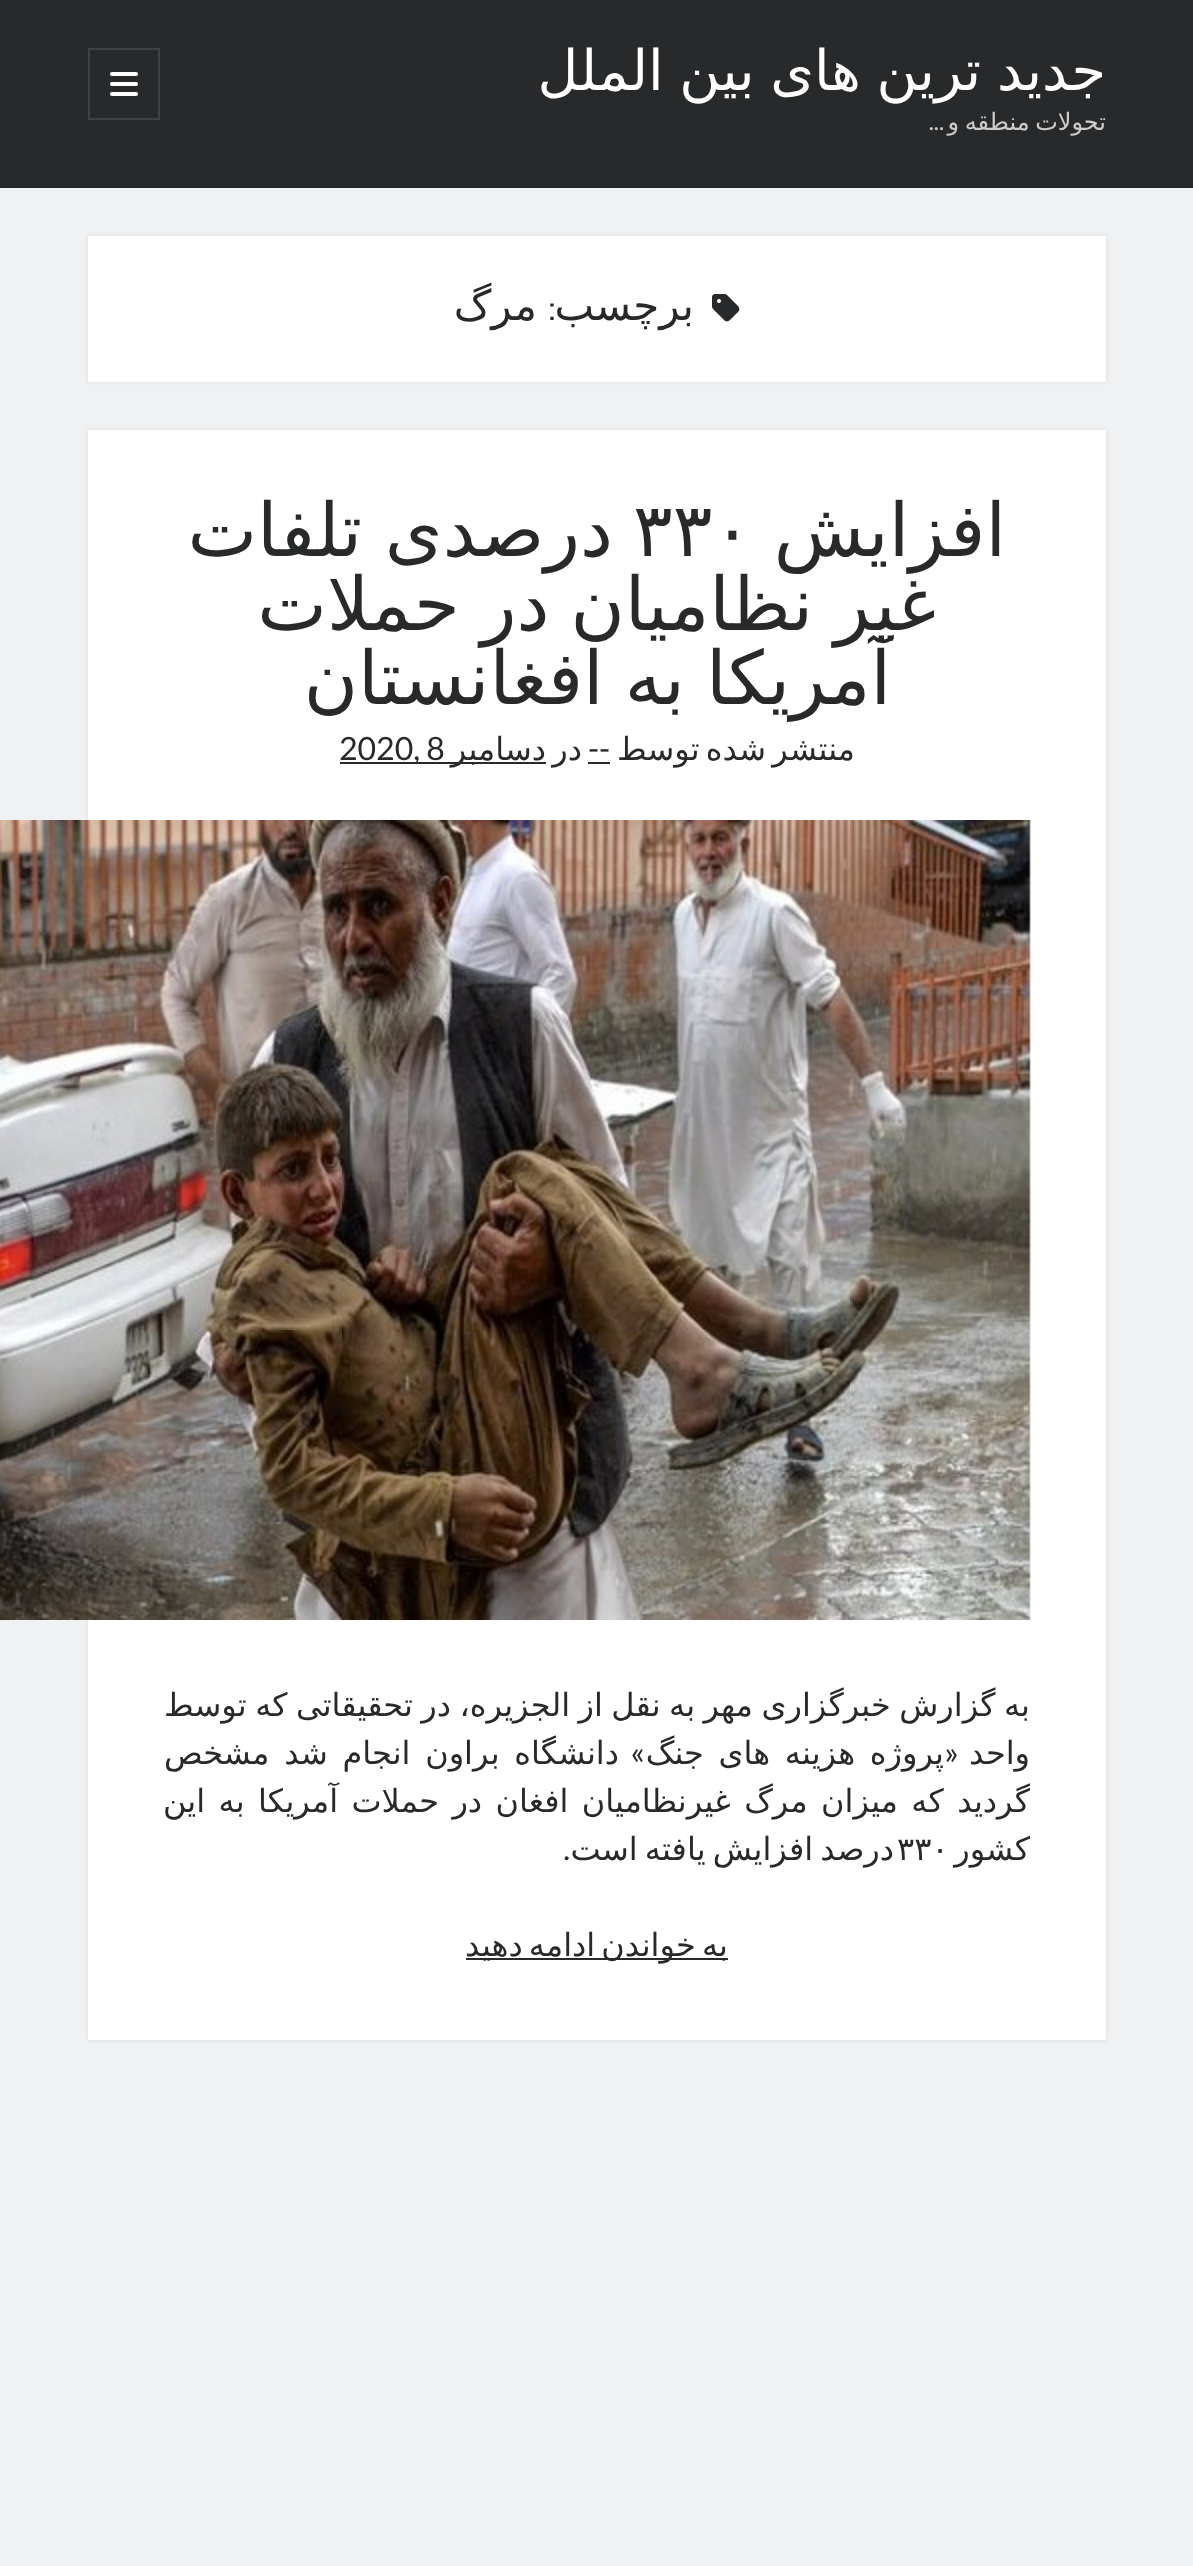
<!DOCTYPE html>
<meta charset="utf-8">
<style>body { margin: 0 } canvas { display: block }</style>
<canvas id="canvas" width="1193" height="2566"></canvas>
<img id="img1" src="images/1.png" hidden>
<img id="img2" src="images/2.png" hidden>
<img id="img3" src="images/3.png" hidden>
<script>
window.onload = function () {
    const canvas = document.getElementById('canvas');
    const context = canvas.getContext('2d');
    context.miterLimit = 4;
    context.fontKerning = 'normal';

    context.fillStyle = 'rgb(39, 41, 43)';
    context.fillRect(0, 0, 1193, 2566);
    context.strokeStyle = 'rgb(62, 65, 69)';
    context.lineWidth = 2;
    context.strokeRect(89, 49, 70, 70);
    context.drawImage(document.getElementById('img1'), 110, 72, 28, 24);
    context.fillStyle = 'rgb(240, 241, 242)';
    context.fillRect(0, 188, 1193, 2378);
    context.fillStyle = 'rgba(39, 43, 47, 0.1)';
    context.filter = 'blur(2px)';
    context.beginPath();
    context.rect(88, 236, 1018, 146);
    context.fill();
    context.filter = 'none';
    context.fillStyle = 'rgb(255, 255, 255)';
    context.fillRect(88, 236, 1018, 146);
    context.drawImage(document.getElementById('img2'), 712, 294, 28, 28);
    context.fillStyle = 'rgba(39, 43, 47, 0.1)';
    context.filter = 'blur(2px)';
    context.beginPath();
    context.rect(88, 430, 1018, 1610);
    context.fill();
    context.filter = 'none';
    context.fillStyle = 'rgb(255, 255, 255)';
    context.fillRect(88, 430, 1018, 1610);
    context.fillStyle = 'rgb(39, 41, 43)';
    context.fillRect(588, 762, 22, 2);
    context.fillRect(340, 762, 206, 2);
    context.drawImage(document.getElementById('img3'), 0, 820, 1031, 800);
    context.fillRect(466, 1958, 262, 2);
    context.wordSpacing = '-2px';
    context.direction = 'rtl';
    context.font = '56px DejaVu Sans';
    context.fillStyle = 'rgb(255, 255, 255)';
    context.fillText('جدید ترین های بین الملل', 1106, 90);
    context.font = '24px DejaVu Sans';
    context.fillStyle = 'rgb(204, 204, 204)';
    context.fillText('تحولات منطقه و', 1106, 130);
    context.wordSpacing = '0px';
    context.font = '24px Lato';
    context.fillText('...', 944, 130);
    context.font = '42px DejaVu Sans';
    context.fillStyle = 'rgb(39, 41, 43)';
    context.fillText('برچسب', 694, 320);
    context.font = '42px Rokkitt';
    context.fillText(':', 555, 320);
    context.font = '42px DejaVu Sans';
    context.fillText('مرگ', 537, 320);
    context.font = '74px DejaVu Sans';
    context.fillText('افزایش', 1006, 556);
    context.direction = 'ltr';
    context.fillText('۳۳۰', 633, 556);
    context.wordSpacing = '-1px';
    context.direction = 'rtl';
    context.fillText('درصدی تلفات', 613, 556);
    context.wordSpacing = '-2.5px';
    context.fillText('غیر نظامیان در حملات', 936, 630);
    context.fillText('آمریکا به افغانستان', 891, 704);
    context.wordSpacing = '-4px';
    context.font = '32px DejaVu Sans';
    context.fillText('منتشر شده توسط', 855, 760);
    context.wordSpacing = '0px';
    context.direction = 'ltr';
    context.font = '32px Lato';
    context.fillText('--', 588, 760);
    context.direction = 'rtl';
    context.font = '32px DejaVu Sans';
    context.fillText('در', 582, 760);
    context.fillText('دسامبر', 546, 760);
    context.direction = 'ltr';
    context.font = '32px Lato';
    context.fillText('2020, 8', 339, 760);
    context.wordSpacing = '-1.75px';
    context.direction = 'rtl';
    context.font = '32px DejaVu Sans';
    context.fillText('به گزارش خبرگزاری مهر به نقل از الجزیره، در تحقیقاتی که توسط', 1030, 1716);
    context.wordSpacing = '0px';
    context.fillText('واحد', 1030, 1764);
    context.font = '32px Lato';
    context.fillText('«', 959, 1764);
    context.wordSpacing = '4.5px';
    context.font = '32px DejaVu Sans';
    context.fillText('پروژه هزینه های جنگ', 944, 1764);
    context.wordSpacing = '0px';
    context.font = '32px Lato';
    context.fillText('»', 645, 1764);
    context.wordSpacing = '4.5px';
    context.font = '32px DejaVu Sans';
    context.fillText('دانشگاه براون انجام شد مشخص', 619, 1764);
    context.wordSpacing = '3.25px';
    context.fillText('گردید که میزان مرگ غیرنظامیان افغان در حملات آمریکا به این', 1030, 1812);
    context.wordSpacing = '0px';
    context.fillText('کشور', 1030, 1860);
    context.wordSpacing = '-3px';
    context.fillText('درصد افزایش یافته است', 894, 1860);
    context.wordSpacing = '0px';
    context.direction = 'ltr';
    context.fillText('۳۳۰', 897, 1860);
    context.direction = 'rtl';
    context.font = '32px Lato';
    context.fillText('.', 570, 1860);
    context.wordSpacing = '-4px';
    context.font = '32px DejaVu Sans';
    context.fillText('به خواندن ادامه دهید', 728, 1956);
};
</script>
